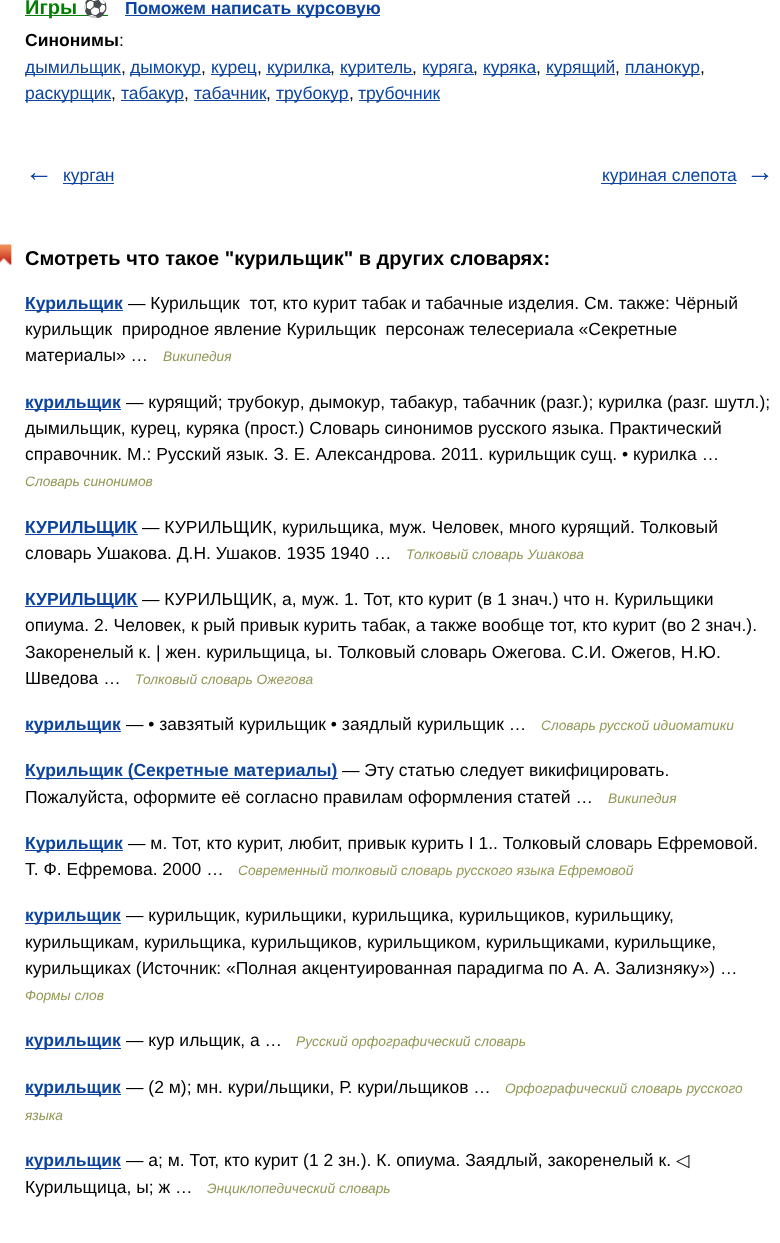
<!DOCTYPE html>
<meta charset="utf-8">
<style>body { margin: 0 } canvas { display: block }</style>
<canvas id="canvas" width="780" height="1243"></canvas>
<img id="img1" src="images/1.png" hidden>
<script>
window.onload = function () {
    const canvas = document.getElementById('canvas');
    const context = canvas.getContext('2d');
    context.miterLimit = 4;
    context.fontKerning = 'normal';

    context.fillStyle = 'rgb(255, 255, 255)';
    context.fillRect(0, 0, 780, 1243);
    context.fillStyle = 'rgb(0, 128, 0)';
    context.fillRect(25, 15, 83, 1);
    context.fillStyle = 'rgb(13, 68, 160)';
    context.fillRect(125, 15, 255, 1);
    context.fillRect(25, 74, 96, 1);
    context.fillRect(130, 74, 71, 1);
    context.fillRect(211, 74, 45, 1);
    context.fillRect(266, 74, 64, 1);
    context.fillRect(340, 74, 73, 1);
    context.fillRect(423, 74, 51, 1);
    context.fillRect(483, 74, 53, 1);
    context.fillRect(546, 74, 69, 1);
    context.fillRect(625, 74, 75, 1);
    context.fillRect(25, 100, 86, 1);
    context.fillRect(121, 100, 63, 1);
    context.fillRect(194, 100, 72, 1);
    context.fillRect(276, 100, 73, 1);
    context.fillRect(359, 100, 81, 1);
    context.fillRect(63, 183, 51, 1);
    context.fillRect(601, 183, 135, 1);
    context.drawImage(document.getElementById('img1'), 0, 244, 12, 21);
    context.fillRect(25, 310, 98, 1);
    context.fillRect(25, 409, 96, 1);
    context.fillRect(25, 534, 113, 1);
    context.fillRect(25, 606, 113, 1);
    context.fillRect(25, 731, 96, 1);
    context.fillRect(25, 778, 313, 1);
    context.fillRect(25, 850, 98, 1);
    context.fillRect(25, 923, 96, 1);
    context.fillRect(25, 1048, 96, 1);
    context.fillRect(25, 1094, 96, 1);
    context.fillRect(25, 1168, 96, 1);
    context.font = 'bold 20px Liberation Sans';
    context.fillStyle = 'rgb(0, 128, 0)';
    context.fillText('Игры', 25, 14);
    context.font = 'bold 20px Noto Color Emoji';
    context.fillText('⚽', 83, 14);
    context.font = 'bold 17.5px Liberation Sans';
    context.fillStyle = 'rgb(13, 68, 160)';
    context.fillText('Поможем написать курсовую', 125, 14);
    context.fillStyle = 'rgb(0, 0, 0)';
    context.fillText('Синонимы', 25, 46);
    context.font = '17.5px Liberation Sans';
    context.fillText(':', 119, 46);
    context.fillStyle = 'rgb(13, 68, 160)';
    context.fillText('дымильщик', 25, 73);
    context.fillStyle = 'rgb(0, 0, 0)';
    context.fillText(',', 121, 73);
    context.fillStyle = 'rgb(13, 68, 160)';
    context.fillText('дымокур', 130, 73);
    context.fillStyle = 'rgb(0, 0, 0)';
    context.fillText(',', 201, 73);
    context.fillStyle = 'rgb(13, 68, 160)';
    context.fillText('курец', 211, 73);
    context.fillStyle = 'rgb(0, 0, 0)';
    context.fillText(',', 257, 73);
    context.fillStyle = 'rgb(13, 68, 160)';
    context.fillText('курилка', 267, 73);
    context.fillStyle = 'rgb(0, 0, 0)';
    context.fillText(',', 330, 73);
    context.fillStyle = 'rgb(13, 68, 160)';
    context.fillText('куритель', 340, 73);
    context.fillStyle = 'rgb(0, 0, 0)';
    context.fillText(',', 412, 73);
    context.fillStyle = 'rgb(13, 68, 160)';
    context.fillText('куряга', 422, 73);
    context.fillStyle = 'rgb(0, 0, 0)';
    context.fillText(',', 473, 73);
    context.fillStyle = 'rgb(13, 68, 160)';
    context.fillText('куряка', 483, 73);
    context.fillStyle = 'rgb(0, 0, 0)';
    context.fillText(',', 536, 73);
    context.fillStyle = 'rgb(13, 68, 160)';
    context.fillText('курящий', 546, 73);
    context.fillStyle = 'rgb(0, 0, 0)';
    context.fillText(',', 615, 73);
    context.fillStyle = 'rgb(13, 68, 160)';
    context.fillText('планокур', 625, 73);
    context.fillStyle = 'rgb(0, 0, 0)';
    context.fillText(',', 700, 73);
    context.fillStyle = 'rgb(13, 68, 160)';
    context.fillText('раскурщик', 25, 99);
    context.fillStyle = 'rgb(0, 0, 0)';
    context.fillText(',', 111, 99);
    context.fillStyle = 'rgb(13, 68, 160)';
    context.fillText('табакур', 121, 99);
    context.fillStyle = 'rgb(0, 0, 0)';
    context.fillText(',', 184, 99);
    context.fillStyle = 'rgb(13, 68, 160)';
    context.fillText('табачник', 194, 99);
    context.fillStyle = 'rgb(0, 0, 0)';
    context.fillText(',', 266, 99);
    context.fillStyle = 'rgb(13, 68, 160)';
    context.fillText('трубокур', 276, 99);
    context.fillStyle = 'rgb(0, 0, 0)';
    context.fillText(',', 349, 99);
    context.fillStyle = 'rgb(13, 68, 160)';
    context.fillText('трубочник', 358, 99);
    context.font = 'bold 28px Liberation Sans';
    context.fillText('←', 25, 181);
    context.font = '17.5px Liberation Sans';
    context.fillText('курган', 63, 181);
    context.fillText('куриная слепота', 602, 181);
    context.font = 'bold 28px Liberation Sans';
    context.fillText('→', 746, 181);
    context.font = 'bold 20px Liberation Sans';
    context.fillStyle = 'rgb(0, 0, 0)';
    context.fillText('Смотреть что такое "курильщик" в других словарях:', 25, 265);
    context.font = 'bold 17.5px Liberation Sans';
    context.fillStyle = 'rgb(13, 68, 160)';
    context.fillText('Курильщик', 25, 309);
    context.font = '17.5px Liberation Sans';
    context.fillStyle = 'rgb(0, 0, 0)';
    context.fillText('— Курильщик  тот, кто курит табак и табачные изделия. См. также: Чёрный', 128, 309);
    context.fillText('курильщик  природное явление Курильщик  персонаж телесериала «Секретные', 25, 335);
    context.fillText('материалы» …', 25, 361);
    context.font = 'italic 13.75px Liberation Sans';
    context.fillStyle = 'rgb(147, 151, 86)';
    context.fillText('Википедия', 163, 361);
    context.font = 'bold 17.5px Liberation Sans';
    context.fillStyle = 'rgb(13, 68, 160)';
    context.fillText('курильщик', 25, 408);
    context.font = '17.5px Liberation Sans';
    context.fillStyle = 'rgb(0, 0, 0)';
    context.fillText('— курящий; трубокур, дымокур, табакур, табачник (разг.); курилка (разг. шутл.);', 126, 408);
    context.fillText('дымильщик, курец, куряка (прост.) Словарь синонимов русского языка. Практический', 25, 434);
    context.fillText('справочник. М.: Русский язык. З. Е. Александрова. 2011. курильщик сущ. • курилка …', 25, 460);
    context.font = 'italic 13.75px Liberation Sans';
    context.fillStyle = 'rgb(147, 151, 86)';
    context.fillText('Словарь синонимов', 25, 486);
    context.font = 'bold 17.5px Liberation Sans';
    context.fillStyle = 'rgb(13, 68, 160)';
    context.fillText('КУРИЛЬЩИК', 25, 533);
    context.font = '17.5px Liberation Sans';
    context.fillStyle = 'rgb(0, 0, 0)';
    context.fillText('— КУРИЛЬЩИК, курильщика, муж. Человек, много курящий. Толковый', 142, 533);
    context.fillText('словарь Ушакова. Д.Н. Ушаков. 1935 1940 …', 25, 559);
    context.font = 'italic 13.75px Liberation Sans';
    context.fillStyle = 'rgb(147, 151, 86)';
    context.fillText('Толковый словарь Ушакова', 406, 559);
    context.font = 'bold 17.5px Liberation Sans';
    context.fillStyle = 'rgb(13, 68, 160)';
    context.fillText('КУРИЛЬЩИК', 25, 605);
    context.font = '17.5px Liberation Sans';
    context.fillStyle = 'rgb(0, 0, 0)';
    context.fillText('— КУРИЛЬЩИК, а, муж. 1. Тот, кто курит (в 1 знач.) что н. Курильщики', 142, 605);
    context.fillText('опиума. 2. Человек, к рый привык курить табак, а также вообще тот, кто курит (во 2 знач.).', 25, 631);
    context.fillText('Закоренелый к. | жен. курильщица, ы. Толковый словарь Ожегова. С.И. Ожегов, Н.Ю.', 25, 658);
    context.fillText('Шведова …', 25, 684);
    context.font = 'italic 13.75px Liberation Sans';
    context.fillStyle = 'rgb(147, 151, 86)';
    context.fillText('Толковый словарь Ожегова', 135, 684);
    context.font = 'bold 17.5px Liberation Sans';
    context.fillStyle = 'rgb(13, 68, 160)';
    context.fillText('курильщик', 25, 730);
    context.font = '17.5px Liberation Sans';
    context.fillStyle = 'rgb(0, 0, 0)';
    context.fillText('— • завзятый курильщик • заядлый курильщик …', 126, 730);
    context.font = 'italic 13.75px Liberation Sans';
    context.fillStyle = 'rgb(147, 151, 86)';
    context.fillText('Словарь русской идиоматики', 541, 730);
    context.font = 'bold 17.5px Liberation Sans';
    context.fillStyle = 'rgb(13, 68, 160)';
    context.fillText('Курильщик (Секретные материалы)', 25, 776);
    context.font = '17.5px Liberation Sans';
    context.fillStyle = 'rgb(0, 0, 0)';
    context.fillText('— Эту статью следует викифицировать.', 342, 776);
    context.fillText('Пожалуйста, оформите её согласно правилам оформления статей …', 25, 803);
    context.font = 'italic 13.75px Liberation Sans';
    context.fillStyle = 'rgb(147, 151, 86)';
    context.fillText('Википедия', 608, 803);
    context.font = 'bold 17.5px Liberation Sans';
    context.fillStyle = 'rgb(13, 68, 160)';
    context.fillText('Курильщик', 25, 849);
    context.font = '17.5px Liberation Sans';
    context.fillStyle = 'rgb(0, 0, 0)';
    context.fillText('— м. Тот, кто курит, любит, привык курить I 1.. Толковый словарь Ефремовой.', 128, 849);
    context.fillText('Т. Ф. Ефремова. 2000 …', 25, 875);
    context.font = 'italic 13.75px Liberation Sans';
    context.fillStyle = 'rgb(147, 151, 86)';
    context.fillText('Современный толковый словарь русского языка Ефремовой', 238, 875);
    context.font = 'bold 17.5px Liberation Sans';
    context.fillStyle = 'rgb(13, 68, 160)';
    context.fillText('курильщик', 25, 921);
    context.font = '17.5px Liberation Sans';
    context.fillStyle = 'rgb(0, 0, 0)';
    context.fillText('— курильщик, курильщики, курильщика, курильщиков, курильщику,', 126, 921);
    context.fillText('курильщикам, курильщика, курильщиков, курильщиком, курильщиками, курильщике,', 25, 948);
    context.fillText('курильщиках (Источник: «Полная акцентуированная парадигма по А. А. Зализняку») …', 25, 974);
    context.font = 'italic 13.75px Liberation Sans';
    context.fillStyle = 'rgb(147, 151, 86)';
    context.fillText('Формы слов', 25, 1000);
    context.font = 'bold 17.5px Liberation Sans';
    context.fillStyle = 'rgb(13, 68, 160)';
    context.fillText('курильщик', 25, 1046);
    context.font = '17.5px Liberation Sans';
    context.fillStyle = 'rgb(0, 0, 0)';
    context.fillText('— кур ильщик, а …', 126, 1046);
    context.font = 'italic 13.75px Liberation Sans';
    context.fillStyle = 'rgb(147, 151, 86)';
    context.fillText('Русский орфографический словарь', 296, 1046);
    context.font = 'bold 17.5px Liberation Sans';
    context.fillStyle = 'rgb(13, 68, 160)';
    context.fillText('курильщик', 25, 1093);
    context.font = '17.5px Liberation Sans';
    context.fillStyle = 'rgb(0, 0, 0)';
    context.fillText('— (2 м); мн. кури/льщики, Р. кури/льщиков …', 126, 1093);
    context.font = 'italic 13.75px Liberation Sans';
    context.fillStyle = 'rgb(147, 151, 86)';
    context.fillText('Орфографический словарь русского', 505, 1093);
    context.fillText('языка', 25, 1120);
    context.font = 'bold 17.5px Liberation Sans';
    context.fillStyle = 'rgb(13, 68, 160)';
    context.fillText('курильщик', 25, 1166);
    context.font = '17.5px Liberation Sans';
    context.fillStyle = 'rgb(0, 0, 0)';
    context.fillText('— а; м. Тот, кто курит (1 2 зн.). К. опиума. Заядлый, закоренелый к.', 126, 1166);
    context.font = '17.5px DejaVu Sans';
    context.fillText('◁', 676, 1166);
    context.font = '17.5px Liberation Sans';
    context.fillText('Курильщица, ы; ж …', 25, 1193);
    context.font = 'italic 13.75px Liberation Sans';
    context.fillStyle = 'rgb(147, 151, 86)';
    context.fillText('Энциклопедический словарь', 207, 1193);
};
</script>
